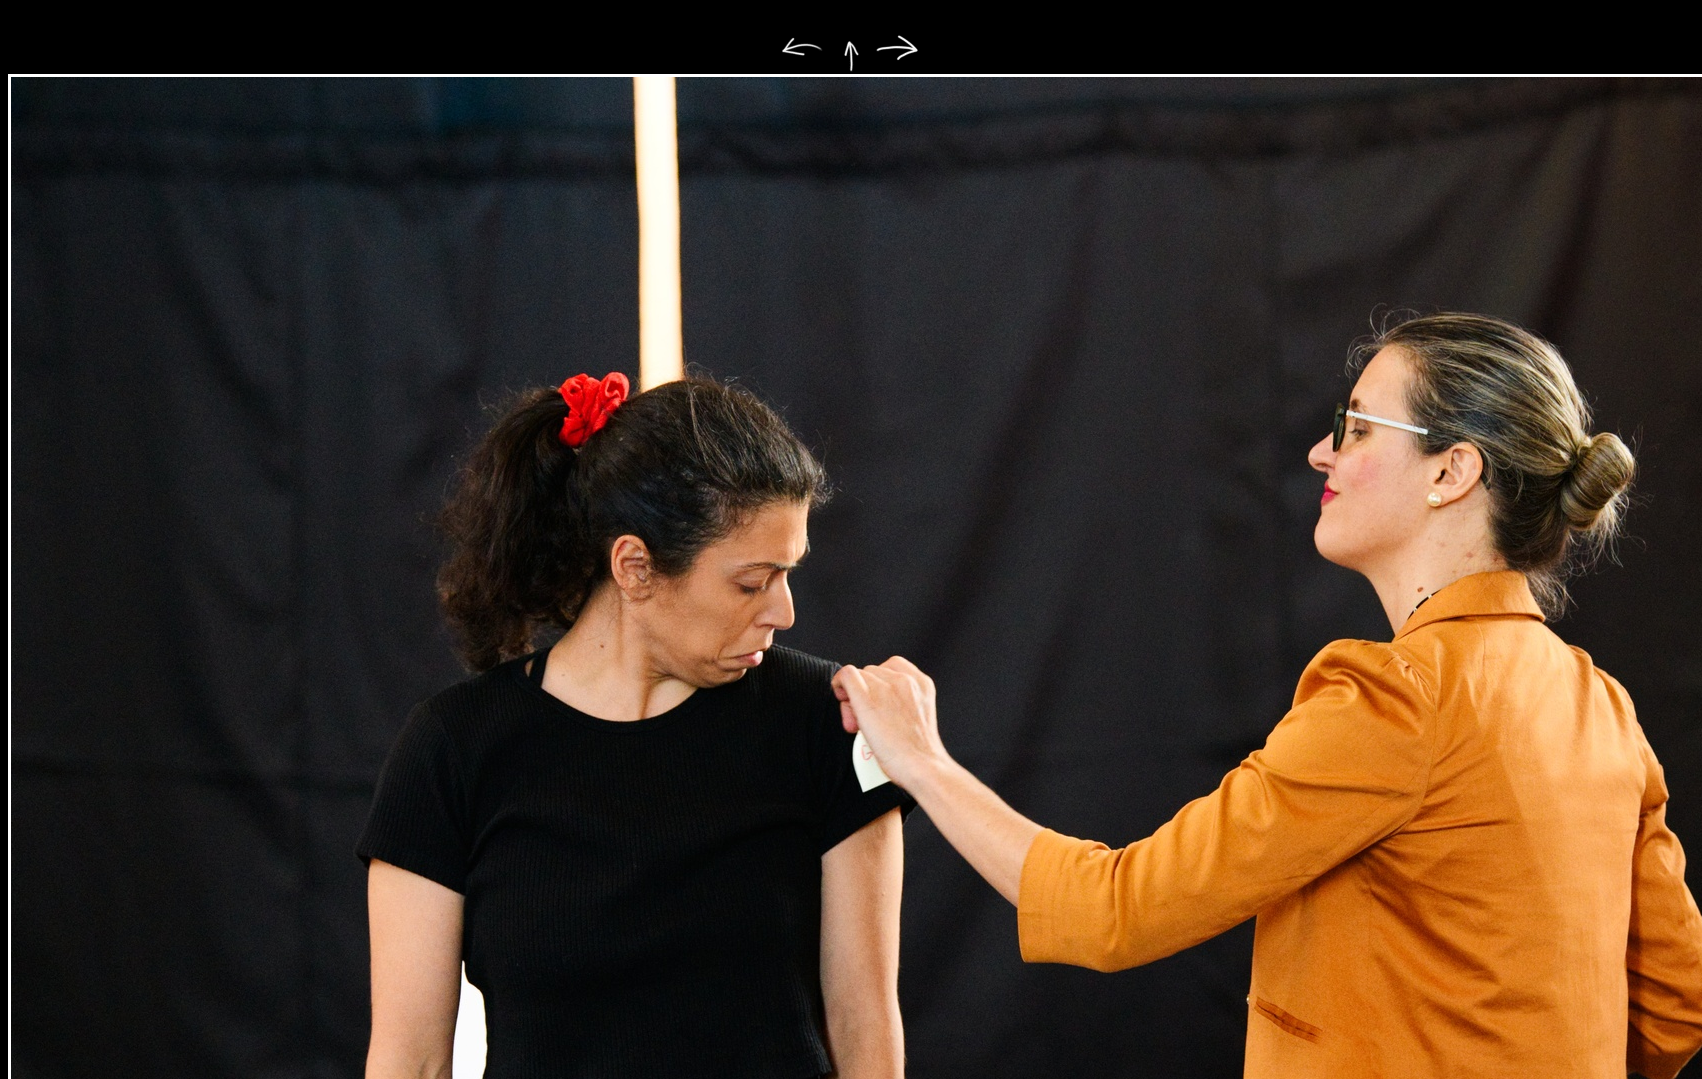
<!DOCTYPE html>
<meta charset="utf-8">
<style>body { margin: 0 } canvas { display: block }</style>
<canvas id="canvas" width="1702" height="1079"></canvas>
<img id="img1" src="images/1.png" hidden>
<img id="img2" src="images/2.png" hidden>
<img id="img3" src="images/3.png" hidden>
<img id="img4" src="images/4.png" hidden>
<script>
window.onload = function () {
    const canvas = document.getElementById('canvas');
    const context = canvas.getContext('2d');
    context.miterLimit = 4;
    context.fontKerning = 'normal';

    context.fillStyle = 'rgb(0, 0, 0)';
    context.fillRect(0, 0, 1702, 1079);
    context.drawImage(document.getElementById('img1'), 782, 37, 41, 19);
    context.drawImage(document.getElementById('img2'), 844, 41, 15, 31);
    context.drawImage(document.getElementById('img3'), 876, 35, 42, 26);
    context.strokeStyle = 'rgb(255, 255, 255)';
    context.lineWidth = 3;
    context.strokeRect(9.5, 75.5, 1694, 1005);
    context.drawImage(document.getElementById('img4'), 11, 77, 1691, 1002);
};
</script>
